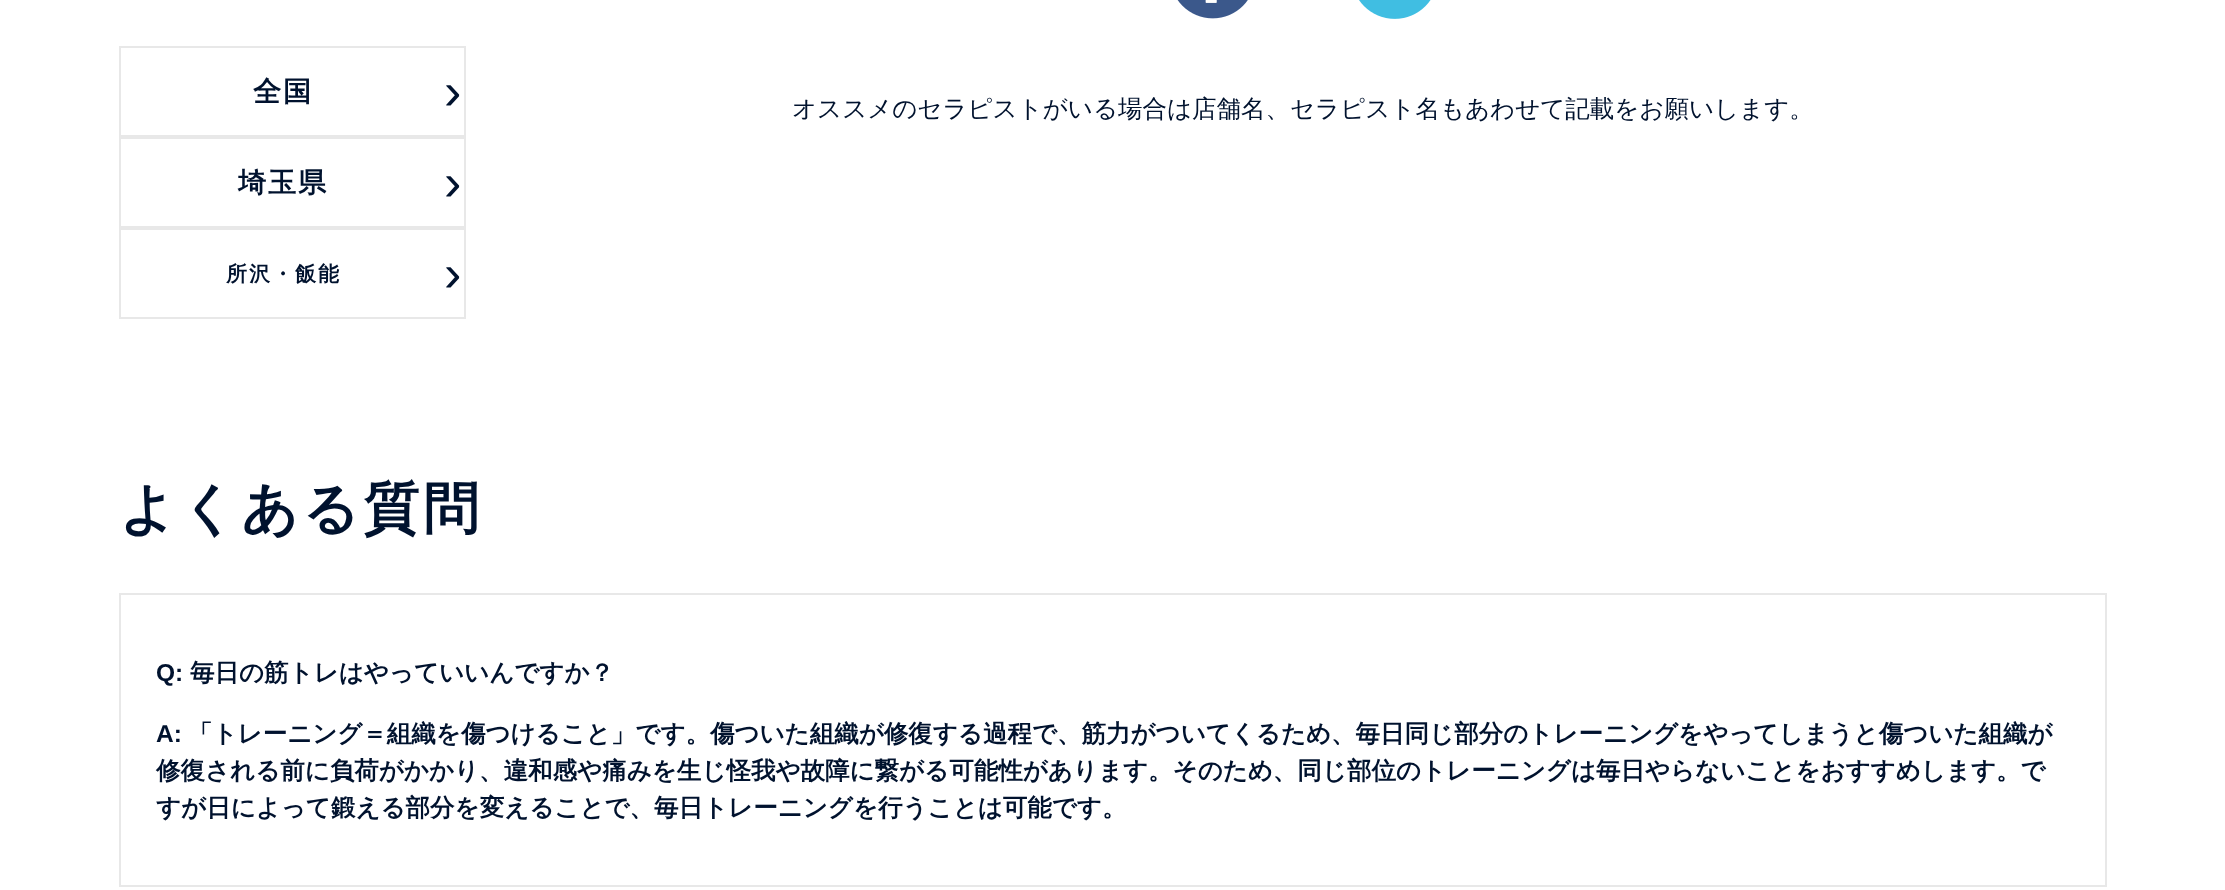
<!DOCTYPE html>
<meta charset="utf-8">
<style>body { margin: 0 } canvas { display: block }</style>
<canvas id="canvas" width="2225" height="890"></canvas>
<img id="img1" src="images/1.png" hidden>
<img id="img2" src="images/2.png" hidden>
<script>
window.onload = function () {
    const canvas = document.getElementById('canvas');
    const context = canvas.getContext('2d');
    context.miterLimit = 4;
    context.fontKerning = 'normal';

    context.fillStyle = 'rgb(255, 255, 255)';
    context.fillRect(0, 0, 2225, 890);
    context.strokeStyle = 'rgb(232, 232, 232)';
    context.lineWidth = 2;
    context.strokeRect(120, 47, 345, 89);
    context.strokeRect(120, 138, 345, 89);
    context.strokeRect(120, 229, 345, 89);
    context.drawImage(document.getElementById('img1'), 1177, 0, 71, 19);
    context.drawImage(document.getElementById('img2'), 1359, 0, 72, 19);
    context.strokeRect(120, 594, 1986, 292);
    context.letterSpacing = '2px';
    context.font = 'bold 28px WenQuanYi Zen Hei';
    context.fillStyle = 'rgb(0, 18, 46)';
    context.fillText('全国', 253, 101);
    context.font = '52px Liberation Sans';
    context.fillText('›', 444, 109);
    context.font = 'bold 28px WenQuanYi Zen Hei';
    context.fillText('埼玉県', 238, 192);
    context.font = '52px Liberation Sans';
    context.fillText('›', 444, 200);
    context.font = 'bold 21px WenQuanYi Zen Hei';
    context.fillText('所沢・飯能', 226, 281);
    context.font = '52px Liberation Sans';
    context.fillText('›', 444, 291);
    context.letterSpacing = '0px';
    context.font = '500 24.5px WenQuanYi Zen Hei';
    context.fillText('オススメのセラピストがいる場合は店舗名、セラピスト名もあわせて記載をお願いします。', 792, 117);
    context.letterSpacing = '3.75px';
    context.font = 'bold 56px WenQuanYi Zen Hei';
    context.fillText('よくある質問', 119, 528);
    context.letterSpacing = '0px';
    context.font = 'bold 24.5px Liberation Sans';
    context.fillText('Q:', 156, 681);
    context.font = 'bold 24.5px WenQuanYi Zen Hei';
    context.fillText('毎日の筋トレはやっていいんですか？', 190, 681);
    context.font = 'bold 24.5px Liberation Sans';
    context.fillText('A:', 156, 742);
    context.font = 'bold 24.5px WenQuanYi Zen Hei';
    context.fillText('「トレーニング＝組織を傷つけること」です。傷ついた組織が修復する過程で、筋力がついてくるため、毎日同じ部分のトレーニングをやってしまうと傷ついた組織が', 188, 742);
    context.fillText('修復される前に負荷がかかり、違和感や痛みを生じ怪我や故障に繋がる可能性があります。そのため、同じ部位のトレーニングは毎日やらないことをおすすめします。で', 156, 779);
    context.fillText('すが日によって鍛える部分を変えることで、毎日トレーニングを行うことは可能です。', 156, 816);
};
</script>
